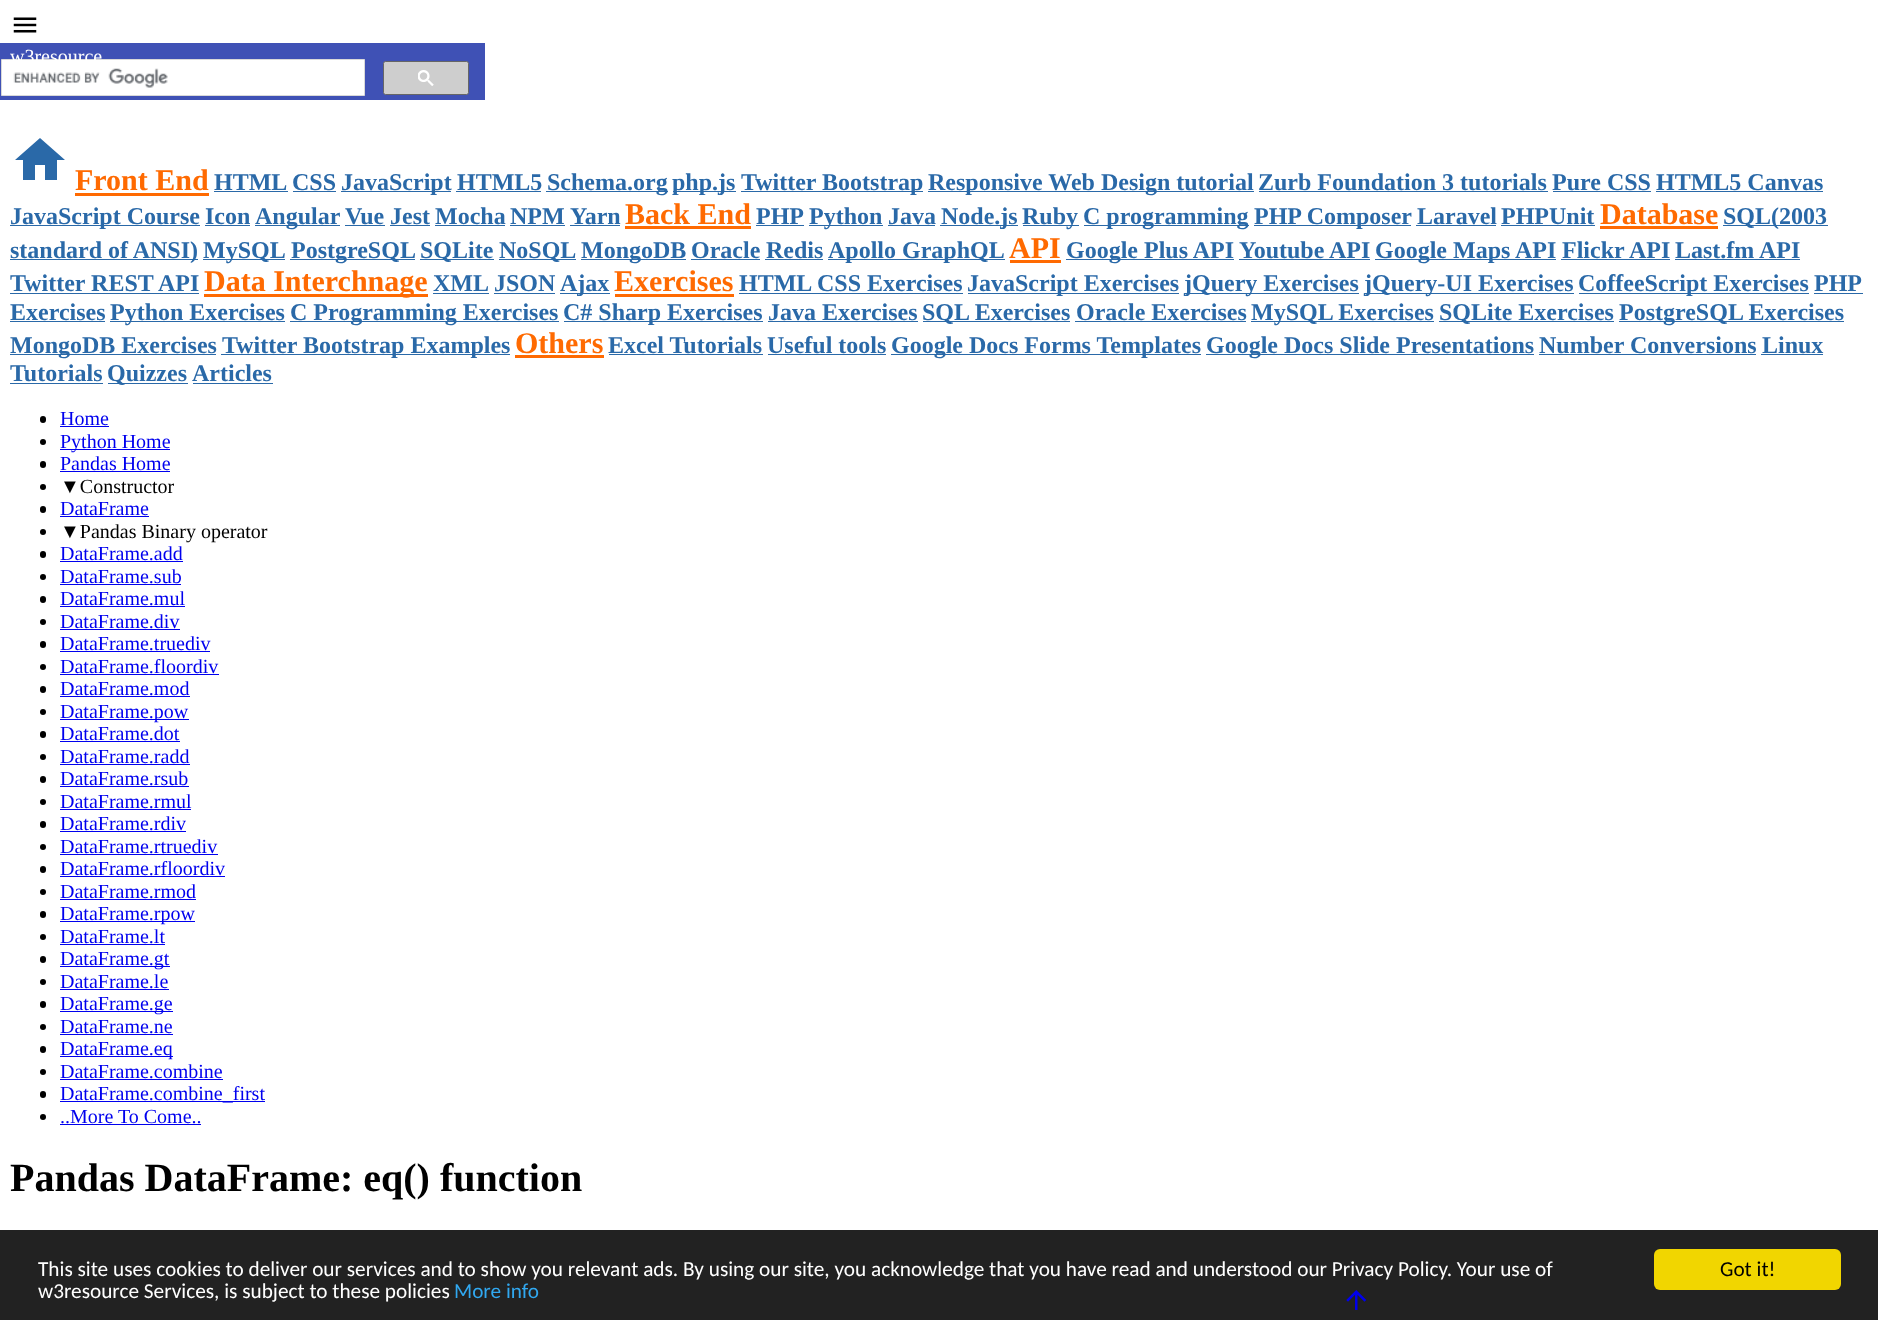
<!DOCTYPE html>
<meta charset="utf-8">
<style>body { margin: 0 } canvas { display: block }</style>
<canvas id="canvas" width="1878" height="1320"></canvas>
<img id="img1" src="images/1.png" hidden>
<img id="img2" src="images/2.png" hidden>
<img id="img3" src="images/3.png" hidden>
<img id="img4" src="images/4.png" hidden>
<script>
window.onload = function () {
    const canvas = document.getElementById('canvas');
    const context = canvas.getContext('2d');
    context.miterLimit = 4;
    context.fontKerning = 'normal';

    context.fillStyle = 'rgb(255, 255, 255)';
    context.fillRect(0, 0, 1878, 1320);
    context.drawImage(document.getElementById('img1'), 13, 17, 24, 16);
    context.fillStyle = 'rgb(63, 81, 181)';
    context.fillRect(0, 43, 485, 57);
    context.fillStyle = 'rgb(255, 255, 255)';
    context.beginPath();
    context.rect(1.5, 59.5, 363, 36);
    context.fill();
    context.strokeStyle = 'rgb(217, 217, 217)';
    context.stroke();
    context.drawImage(document.getElementById('img2'), 13, 68, 155, 20);
    context.fillStyle = 'rgb(206, 206, 206)';
    context.beginPath();
    context.roundRect(383.5, 61.5, 85, 33, 2);
    context.fill();
    context.strokeStyle = 'rgb(102, 102, 102)';
    context.stroke();
    context.drawImage(document.getElementById('img3'), 418, 70, 16, 16);
    context.fillStyle = 'rgb(42, 105, 168)';
    context.beginPath();
    context.moveTo(35, 180);
    context.lineTo(23, 180);
    context.lineTo(23, 160);
    context.lineTo(15, 160);
    context.lineTo(40, 138);
    context.lineTo(65, 160);
    context.lineTo(57, 160);
    context.lineTo(57, 180);
    context.lineTo(45, 180);
    context.lineTo(45, 165);
    context.lineTo(35, 165);
    context.closePath();
    context.fill();
    context.fillStyle = 'rgb(255, 106, 1)';
    context.fillRect(75, 193, 134, 3);
    context.fillStyle = 'rgb(42, 105, 168)';
    context.fillRect(214, 191, 74, 1);
    context.fillRect(293, 191, 43, 1);
    context.fillRect(341, 191, 110, 1);
    context.fillRect(456, 191, 85, 1);
    context.fillRect(546, 191, 122, 1);
    context.fillRect(673, 191, 63, 1);
    context.fillRect(741, 191, 182, 1);
    context.fillRect(928, 191, 326, 1);
    context.fillRect(1259, 191, 289, 1);
    context.fillRect(1553, 191, 98, 1);
    context.fillRect(1656, 191, 167, 1);
    context.fillRect(10, 225, 190, 1);
    context.fillRect(205, 225, 45, 1);
    context.fillRect(255, 225, 85, 1);
    context.fillRect(345, 225, 40, 1);
    context.fillRect(390, 225, 40, 1);
    context.fillRect(435, 225, 70, 1);
    context.fillRect(510, 225, 55, 1);
    context.fillRect(570, 225, 50, 1);
    context.fillStyle = 'rgb(255, 106, 1)';
    context.fillRect(625, 226, 126, 3);
    context.fillStyle = 'rgb(42, 105, 168)';
    context.fillRect(756, 225, 48, 1);
    context.fillRect(809, 225, 74, 1);
    context.fillRect(888, 225, 47, 1);
    context.fillRect(940, 225, 78, 1);
    context.fillRect(1023, 225, 56, 1);
    context.fillRect(1084, 225, 165, 1);
    context.fillRect(1254, 225, 157, 1);
    context.fillRect(1416, 225, 80, 1);
    context.fillRect(1501, 225, 94, 1);
    context.fillStyle = 'rgb(255, 106, 1)';
    context.fillRect(1600, 226, 118, 3);
    context.fillStyle = 'rgb(42, 105, 168)';
    context.fillRect(1723, 225, 105, 1);
    context.fillRect(10, 259, 188, 1);
    context.fillRect(203, 259, 82, 1);
    context.fillRect(290, 259, 125, 1);
    context.fillRect(420, 259, 74, 1);
    context.fillRect(499, 259, 77, 1);
    context.fillRect(581, 259, 105, 1);
    context.fillRect(691, 259, 69, 1);
    context.fillRect(765, 259, 58, 1);
    context.fillRect(828, 259, 177, 1);
    context.fillStyle = 'rgb(255, 106, 1)';
    context.fillRect(1010, 260, 51, 3);
    context.fillStyle = 'rgb(42, 105, 168)';
    context.fillRect(1066, 259, 168, 1);
    context.fillRect(1239, 259, 131, 1);
    context.fillRect(1375, 259, 181, 1);
    context.fillRect(1561, 259, 109, 1);
    context.fillRect(1675, 259, 125, 1);
    context.fillRect(10, 293, 189, 1);
    context.fillStyle = 'rgb(255, 106, 1)';
    context.fillRect(204, 294, 224, 3);
    context.fillStyle = 'rgb(42, 105, 168)';
    context.fillRect(433, 293, 56, 1);
    context.fillRect(494, 293, 61, 1);
    context.fillRect(560, 293, 50, 1);
    context.fillStyle = 'rgb(255, 106, 1)';
    context.fillRect(615, 294, 119, 3);
    context.fillStyle = 'rgb(42, 105, 168)';
    context.fillRect(739, 293, 224, 1);
    context.fillRect(968, 293, 211, 1);
    context.fillRect(1184, 293, 175, 1);
    context.fillRect(1364, 293, 210, 1);
    context.fillRect(1579, 293, 230, 1);
    context.fillRect(1814, 293, 49, 1);
    context.fillRect(10, 321, 95, 1);
    context.fillRect(110, 321, 175, 1);
    context.fillRect(290, 321, 269, 1);
    context.fillRect(564, 321, 199, 1);
    context.fillRect(768, 321, 150, 1);
    context.fillRect(923, 321, 147, 1);
    context.fillRect(1075, 321, 171, 1);
    context.fillRect(1251, 321, 183, 1);
    context.fillRect(1439, 321, 175, 1);
    context.fillRect(1619, 321, 225, 1);
    context.fillRect(10, 354, 206, 1);
    context.fillRect(221, 354, 289, 1);
    context.fillStyle = 'rgb(255, 106, 1)';
    context.fillRect(515, 355, 89, 3);
    context.fillStyle = 'rgb(42, 105, 168)';
    context.fillRect(609, 354, 154, 1);
    context.fillRect(768, 354, 118, 1);
    context.fillRect(891, 354, 310, 1);
    context.fillRect(1206, 354, 328, 1);
    context.fillRect(1539, 354, 217, 1);
    context.fillRect(1761, 354, 62, 1);
    context.fillRect(10, 383, 93, 1);
    context.fillRect(108, 383, 80, 1);
    context.fillRect(193, 383, 80, 1);
    context.fillStyle = 'rgb(0, 0, 0)';
    context.beginPath();
    context.roundRect(40, 416, 6, 7, 3);
    context.fill();
    context.fillStyle = 'rgb(0, 0, 238)';
    context.fillRect(60, 426, 49, 1);
    context.fillStyle = 'rgb(0, 0, 0)';
    context.beginPath();
    context.arc(43, 442, 3, 0, 2 * Math.PI);
    context.fill();
    context.fillStyle = 'rgb(0, 0, 238)';
    context.fillRect(60, 449, 110, 1);
    context.fillStyle = 'rgb(0, 0, 0)';
    context.beginPath();
    context.roundRect(40, 461, 6, 7, 3);
    context.fill();
    context.fillStyle = 'rgb(0, 0, 238)';
    context.fillRect(60, 471, 110, 1);
    context.fillStyle = 'rgb(0, 0, 0)';
    context.beginPath();
    context.arc(43, 487, 3, 0, 2 * Math.PI);
    context.fill();
    context.beginPath();
    context.roundRect(40, 506, 6, 7, 3);
    context.fill();
    context.fillStyle = 'rgb(0, 0, 238)';
    context.fillRect(60, 516, 89, 1);
    context.fillStyle = 'rgb(0, 0, 0)';
    context.beginPath();
    context.arc(43, 532, 3, 0, 2 * Math.PI);
    context.fill();
    context.beginPath();
    context.roundRect(40, 551, 6, 7, 3);
    context.fill();
    context.fillStyle = 'rgb(0, 0, 238)';
    context.fillRect(60, 561, 123, 1);
    context.fillStyle = 'rgb(0, 0, 0)';
    context.beginPath();
    context.arc(43, 577, 3, 0, 2 * Math.PI);
    context.fill();
    context.fillStyle = 'rgb(0, 0, 238)';
    context.fillRect(60, 584, 121, 1);
    context.fillStyle = 'rgb(0, 0, 0)';
    context.beginPath();
    context.roundRect(40, 596, 6, 7, 3);
    context.fill();
    context.fillStyle = 'rgb(0, 0, 238)';
    context.fillRect(60, 606, 125, 1);
    context.fillStyle = 'rgb(0, 0, 0)';
    context.beginPath();
    context.arc(43, 622, 3, 0, 2 * Math.PI);
    context.fill();
    context.fillStyle = 'rgb(0, 0, 238)';
    context.fillRect(60, 629, 120, 1);
    context.fillStyle = 'rgb(0, 0, 0)';
    context.beginPath();
    context.roundRect(40, 641, 6, 7, 3);
    context.fill();
    context.fillStyle = 'rgb(0, 0, 238)';
    context.fillRect(60, 651, 150, 1);
    context.fillStyle = 'rgb(0, 0, 0)';
    context.beginPath();
    context.arc(43, 667, 3, 0, 2 * Math.PI);
    context.fill();
    context.fillStyle = 'rgb(0, 0, 238)';
    context.fillRect(60, 674, 159, 1);
    context.fillStyle = 'rgb(0, 0, 0)';
    context.beginPath();
    context.roundRect(40, 686, 6, 7, 3);
    context.fill();
    context.fillStyle = 'rgb(0, 0, 238)';
    context.fillRect(60, 696, 130, 1);
    context.fillStyle = 'rgb(0, 0, 0)';
    context.beginPath();
    context.arc(43, 712, 3, 0, 2 * Math.PI);
    context.fill();
    context.fillStyle = 'rgb(0, 0, 238)';
    context.fillRect(60, 719, 129, 1);
    context.fillStyle = 'rgb(0, 0, 0)';
    context.beginPath();
    context.roundRect(40, 731, 6, 7, 3);
    context.fill();
    context.fillStyle = 'rgb(0, 0, 238)';
    context.fillRect(60, 741, 120, 1);
    context.fillStyle = 'rgb(0, 0, 0)';
    context.beginPath();
    context.arc(43, 757, 3, 0, 2 * Math.PI);
    context.fill();
    context.fillStyle = 'rgb(0, 0, 238)';
    context.fillRect(60, 764, 130, 1);
    context.fillStyle = 'rgb(0, 0, 0)';
    context.beginPath();
    context.roundRect(40, 776, 6, 7, 3);
    context.fill();
    context.fillStyle = 'rgb(0, 0, 238)';
    context.fillRect(60, 786, 129, 1);
    context.fillStyle = 'rgb(0, 0, 0)';
    context.beginPath();
    context.arc(43, 802, 3, 0, 2 * Math.PI);
    context.fill();
    context.fillStyle = 'rgb(0, 0, 238)';
    context.fillRect(60, 809, 131, 1);
    context.fillStyle = 'rgb(0, 0, 0)';
    context.beginPath();
    context.roundRect(40, 821, 6, 7, 3);
    context.fill();
    context.fillStyle = 'rgb(0, 0, 238)';
    context.fillRect(60, 831, 126, 1);
    context.fillStyle = 'rgb(0, 0, 0)';
    context.beginPath();
    context.arc(43, 847, 3, 0, 2 * Math.PI);
    context.fill();
    context.fillStyle = 'rgb(0, 0, 238)';
    context.fillRect(60, 854, 158, 1);
    context.fillStyle = 'rgb(0, 0, 0)';
    context.beginPath();
    context.roundRect(40, 866, 6, 7, 3);
    context.fill();
    context.fillStyle = 'rgb(0, 0, 238)';
    context.fillRect(60, 876, 165, 1);
    context.fillStyle = 'rgb(0, 0, 0)';
    context.beginPath();
    context.arc(43, 892, 3, 0, 2 * Math.PI);
    context.fill();
    context.fillStyle = 'rgb(0, 0, 238)';
    context.fillRect(60, 899, 136, 1);
    context.fillStyle = 'rgb(0, 0, 0)';
    context.beginPath();
    context.roundRect(40, 911, 6, 7, 3);
    context.fill();
    context.fillStyle = 'rgb(0, 0, 238)';
    context.fillRect(60, 921, 135, 1);
    context.fillStyle = 'rgb(0, 0, 0)';
    context.beginPath();
    context.arc(43, 937, 3, 0, 2 * Math.PI);
    context.fill();
    context.fillStyle = 'rgb(0, 0, 238)';
    context.fillRect(60, 944, 105, 1);
    context.fillStyle = 'rgb(0, 0, 0)';
    context.beginPath();
    context.roundRect(40, 956, 6, 7, 3);
    context.fill();
    context.fillStyle = 'rgb(0, 0, 238)';
    context.fillRect(60, 966, 110, 1);
    context.fillStyle = 'rgb(0, 0, 0)';
    context.beginPath();
    context.arc(43, 982, 3, 0, 2 * Math.PI);
    context.fill();
    context.fillStyle = 'rgb(0, 0, 238)';
    context.fillRect(60, 989, 109, 1);
    context.fillStyle = 'rgb(0, 0, 0)';
    context.beginPath();
    context.roundRect(40, 1001, 6, 7, 3);
    context.fill();
    context.fillStyle = 'rgb(0, 0, 238)';
    context.fillRect(60, 1011, 113, 1);
    context.fillStyle = 'rgb(0, 0, 0)';
    context.beginPath();
    context.arc(43, 1027, 3, 0, 2 * Math.PI);
    context.fill();
    context.fillStyle = 'rgb(0, 0, 238)';
    context.fillRect(60, 1034, 113, 1);
    context.fillStyle = 'rgb(0, 0, 0)';
    context.beginPath();
    context.roundRect(40, 1046, 6, 7, 3);
    context.fill();
    context.fillStyle = 'rgb(0, 0, 238)';
    context.fillRect(60, 1056, 113, 1);
    context.fillStyle = 'rgb(0, 0, 0)';
    context.beginPath();
    context.arc(43, 1072, 3, 0, 2 * Math.PI);
    context.fill();
    context.fillStyle = 'rgb(0, 0, 238)';
    context.fillRect(60, 1079, 163, 1);
    context.fillStyle = 'rgb(0, 0, 0)';
    context.beginPath();
    context.roundRect(40, 1091, 6, 7, 3);
    context.fill();
    context.fillStyle = 'rgb(0, 0, 238)';
    context.fillRect(60, 1101, 205, 1);
    context.fillStyle = 'rgb(0, 0, 0)';
    context.beginPath();
    context.arc(43, 1117, 3, 0, 2 * Math.PI);
    context.fill();
    context.fillStyle = 'rgb(0, 0, 238)';
    context.fillRect(60, 1124, 141, 1);
    context.fillStyle = 'rgb(34, 34, 34)';
    context.fillRect(0, 1230, 1878, 90);
    context.fillStyle = 'rgb(241, 214, 0)';
    context.beginPath();
    context.roundRect(1654, 1249, 187, 41, 6);
    context.fill();
    context.drawImage(document.getElementById('img4'), 1346, 1290, 21, 20);
    context.font = '20px Liberation Serif';
    context.fillStyle = 'rgb(255, 255, 255)';
    context.fillText('w3resource', 10, 63);
    context.font = 'bold 30px Liberation Serif';
    context.fillStyle = 'rgb(255, 106, 1)';
    context.fillText('Front End', 75, 190);
    context.font = 'bold 24px Liberation Serif';
    context.fillStyle = 'rgb(42, 105, 168)';
    context.fillText('HTML', 214, 190);
    context.fillText('CSS', 292, 190);
    context.fillText('JavaScript', 341, 190);
    context.fillText('HTML5', 457, 190);
    context.fillText('Schema.org', 547, 190);
    context.fillText('php.js', 672, 190);
    context.fillText('Twitter Bootstrap', 741, 190);
    context.fillText('Responsive Web Design tutorial', 928, 190);
    context.fillText('Zurb Foundation 3 tutorials', 1258, 190);
    context.fillText('Pure CSS', 1552, 190);
    context.fillText('HTML5 Canvas', 1656, 190);
    context.fillText('JavaScript Course', 10, 224);
    context.fillText('Icon', 205, 224);
    context.fillText('Angular', 255, 224);
    context.fillText('Vue', 345, 224);
    context.fillText('Jest', 390, 224);
    context.fillText('Mocha', 435, 224);
    context.fillText('NPM', 510, 224);
    context.fillText('Yarn', 570, 224);
    context.font = 'bold 30px Liberation Serif';
    context.fillStyle = 'rgb(255, 106, 1)';
    context.fillText('Back End', 625, 224);
    context.font = 'bold 24px Liberation Serif';
    context.fillStyle = 'rgb(42, 105, 168)';
    context.fillText('PHP', 756, 224);
    context.fillText('Python', 809, 224);
    context.fillText('Java', 888, 224);
    context.fillText('Node.js', 941, 224);
    context.fillText('Ruby', 1022, 224);
    context.fillText('C programming', 1083, 224);
    context.fillText('PHP Composer', 1254, 224);
    context.fillText('Laravel', 1417, 224);
    context.fillText('PHPUnit', 1501, 224);
    context.font = 'bold 30px Liberation Serif';
    context.fillStyle = 'rgb(255, 106, 1)';
    context.fillText('Database', 1600, 224);
    context.font = 'bold 24px Liberation Serif';
    context.fillStyle = 'rgb(42, 105, 168)';
    context.fillText('SQL(2003', 1723, 224);
    context.fillText('standard of ANSI)', 10, 258);
    context.fillText('MySQL', 203, 258);
    context.fillText('PostgreSQL', 291, 258);
    context.fillText('SQLite', 420, 258);
    context.fillText('NoSQL', 499, 258);
    context.fillText('MongoDB', 581, 258);
    context.fillText('Oracle', 691, 258);
    context.fillText('Redis', 766, 258);
    context.fillText('Apollo GraphQL', 828, 258);
    context.font = 'bold 30px Liberation Serif';
    context.fillStyle = 'rgb(255, 106, 1)';
    context.fillText('API', 1009, 258);
    context.font = 'bold 24px Liberation Serif';
    context.fillStyle = 'rgb(42, 105, 168)';
    context.fillText('Google Plus API', 1066, 258);
    context.fillText('Youtube API', 1239, 258);
    context.fillText('Google Maps API', 1375, 258);
    context.fillText('Flickr API', 1562, 258);
    context.fillText('Last.fm API', 1675, 258);
    context.fillText('Twitter REST API', 10, 291);
    context.font = 'bold 30px Liberation Serif';
    context.fillStyle = 'rgb(255, 106, 1)';
    context.fillText('Data Interchnage', 204, 291);
    context.font = 'bold 24px Liberation Serif';
    context.fillStyle = 'rgb(42, 105, 168)';
    context.fillText('XML', 433, 291);
    context.fillText('JSON', 494, 291);
    context.fillText('Ajax', 560, 291);
    context.font = 'bold 30px Liberation Serif';
    context.fillStyle = 'rgb(255, 106, 1)';
    context.fillText('Exercises', 614, 291);
    context.font = 'bold 24px Liberation Serif';
    context.fillStyle = 'rgb(42, 105, 168)';
    context.fillText('HTML CSS Exercises', 739, 291);
    context.fillText('JavaScript Exercises', 967, 291);
    context.fillText('jQuery Exercises', 1184, 291);
    context.fillText('jQuery-UI Exercises', 1364, 291);
    context.fillText('CoffeeScript Exercises', 1578, 291);
    context.fillText('PHP', 1814, 291);
    context.fillText('Exercises', 10, 320);
    context.fillText('Python Exercises', 110, 320);
    context.fillText('C Programming Exercises', 290, 320);
    context.fillText('C# Sharp Exercises', 563, 320);
    context.fillText('Java Exercises', 768, 320);
    context.fillText('SQL Exercises', 922, 320);
    context.fillText('Oracle Exercises', 1076, 320);
    context.fillText('MySQL Exercises', 1251, 320);
    context.fillText('SQLite Exercises', 1439, 320);
    context.fillText('PostgreSQL Exercises', 1619, 320);
    context.fillText('MongoDB Exercises', 10, 353);
    context.fillText('Twitter Bootstrap Examples', 222, 353);
    context.font = 'bold 30px Liberation Serif';
    context.fillStyle = 'rgb(255, 106, 1)';
    context.fillText('Others', 515, 353);
    context.font = 'bold 24px Liberation Serif';
    context.fillStyle = 'rgb(42, 105, 168)';
    context.fillText('Excel Tutorials', 608, 353);
    context.fillText('Useful tools', 767, 353);
    context.fillText('Google Docs Forms Templates', 891, 353);
    context.fillText('Google Docs Slide Presentations', 1206, 353);
    context.fillText('Number Conversions', 1539, 353);
    context.fillText('Linux', 1762, 353);
    context.fillText('Tutorials', 10, 381);
    context.fillText('Quizzes', 107, 381);
    context.fillText('Articles', 192, 381);
    context.font = '20px Liberation Serif';
    context.fillStyle = 'rgb(0, 0, 238)';
    context.fillText('Home', 60, 425);
    context.fillText('Python Home', 60, 448);
    context.fillText('Pandas Home', 60, 470);
    context.fillStyle = 'rgb(0, 0, 0)';
    context.fillText('▼Constructor', 60, 493);
    context.fillStyle = 'rgb(0, 0, 238)';
    context.fillText('DataFrame', 60, 515);
    context.fillStyle = 'rgb(0, 0, 0)';
    context.fillText('▼Pandas Binary operator', 60, 538);
    context.fillStyle = 'rgb(0, 0, 238)';
    context.fillText('DataFrame.add', 60, 560);
    context.fillText('DataFrame.sub', 60, 583);
    context.fillText('DataFrame.mul', 60, 605);
    context.fillText('DataFrame.div', 60, 628);
    context.fillText('DataFrame.truediv', 60, 650);
    context.fillText('DataFrame.floordiv', 60, 673);
    context.fillText('DataFrame.mod', 60, 695);
    context.fillText('DataFrame.pow', 60, 718);
    context.fillText('DataFrame.dot', 60, 740);
    context.fillText('DataFrame.radd', 60, 763);
    context.fillText('DataFrame.rsub', 60, 785);
    context.fillText('DataFrame.rmul', 60, 808);
    context.fillText('DataFrame.rdiv', 60, 830);
    context.fillText('DataFrame.rtruediv', 60, 853);
    context.fillText('DataFrame.rfloordiv', 60, 875);
    context.fillText('DataFrame.rmod', 60, 898);
    context.fillText('DataFrame.rpow', 60, 920);
    context.fillText('DataFrame.lt', 60, 943);
    context.fillText('DataFrame.gt', 60, 965);
    context.fillText('DataFrame.le', 60, 988);
    context.fillText('DataFrame.ge', 60, 1010);
    context.fillText('DataFrame.ne', 60, 1033);
    context.fillText('DataFrame.eq', 60, 1055);
    context.fillText('DataFrame.combine', 60, 1078);
    context.fillText('DataFrame.combine_first', 60, 1100);
    context.fillText('..More To Come..', 60, 1123);
    context.font = 'bold 40px Liberation Serif';
    context.fillStyle = 'rgb(0, 0, 0)';
    context.fillText('Pandas DataFrame: eq() function', 10, 1191);
    context.font = '21.25px Carlito';
    context.fillStyle = 'rgb(255, 255, 255)';
    context.fillText('This site uses cookies to deliver our services and to show you relevant ads. By using our site, you acknowledge that you have read and understood our Privacy Policy. Your use of', 38, 1276);
    context.fillText('w3resource Services, is subject to these policies', 38, 1298);
    context.fillStyle = 'rgb(49, 168, 240)';
    context.fillText('More info', 454, 1298);
    context.fillStyle = 'rgb(0, 0, 0)';
    context.fillText('Got it!', 1720, 1276);
};
</script>
